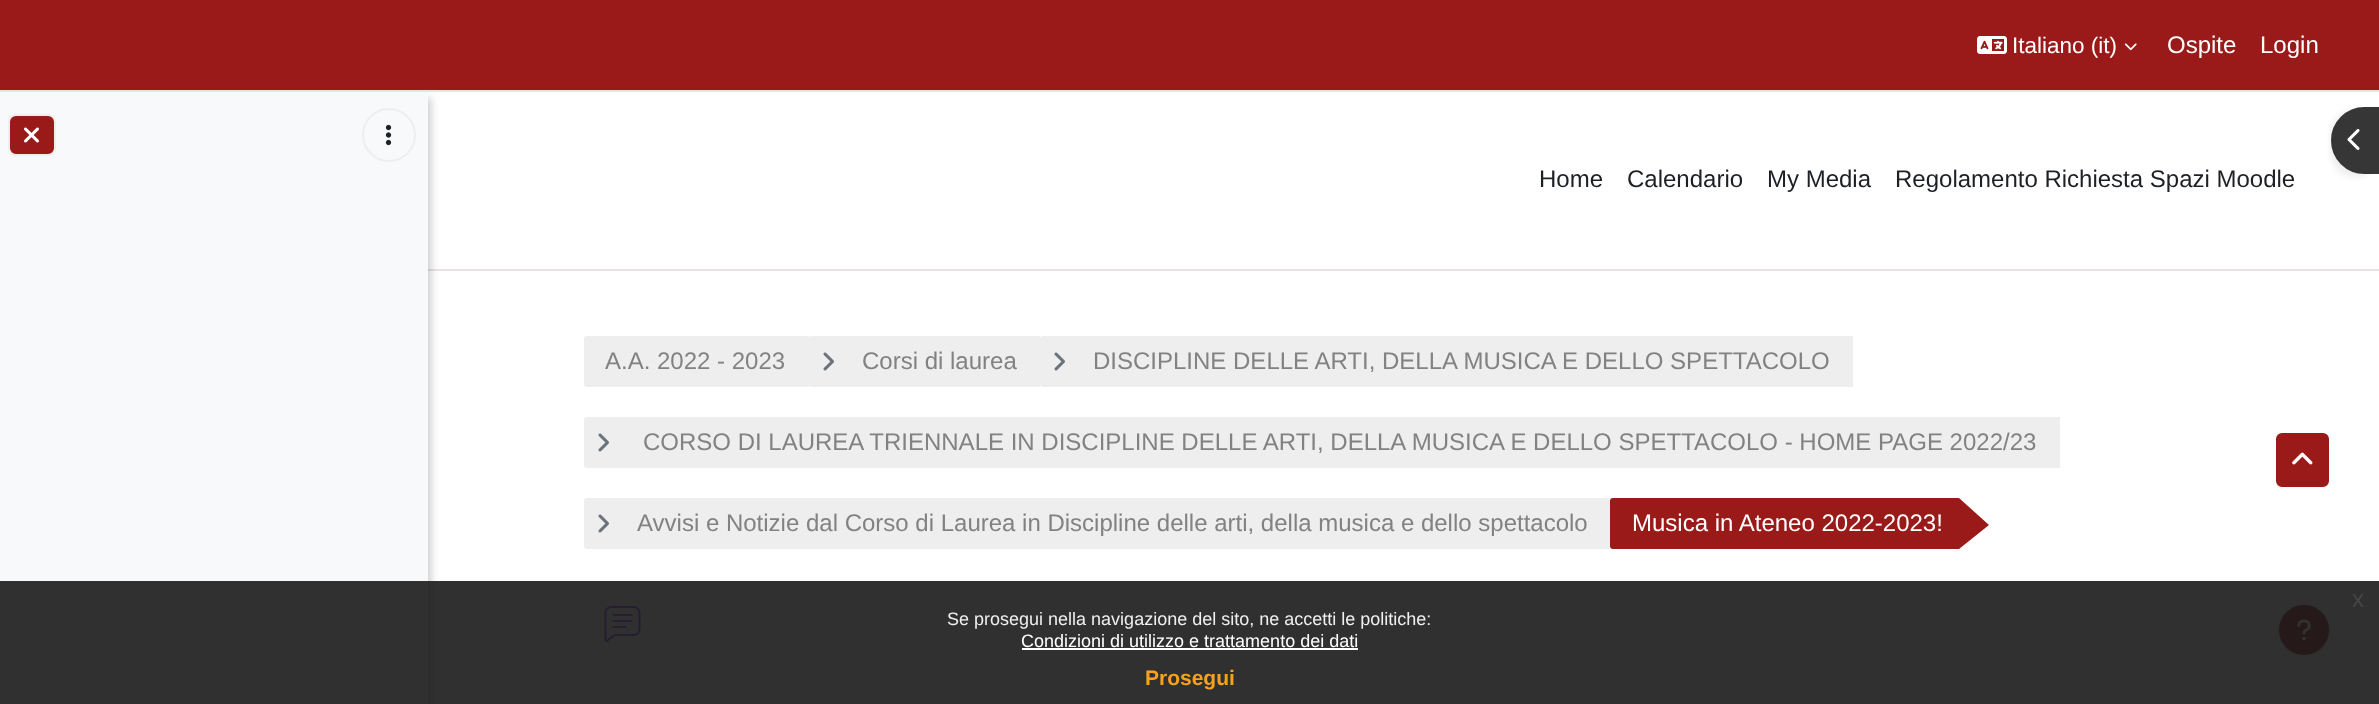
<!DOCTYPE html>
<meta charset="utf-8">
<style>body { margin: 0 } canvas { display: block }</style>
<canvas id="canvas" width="2379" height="704"></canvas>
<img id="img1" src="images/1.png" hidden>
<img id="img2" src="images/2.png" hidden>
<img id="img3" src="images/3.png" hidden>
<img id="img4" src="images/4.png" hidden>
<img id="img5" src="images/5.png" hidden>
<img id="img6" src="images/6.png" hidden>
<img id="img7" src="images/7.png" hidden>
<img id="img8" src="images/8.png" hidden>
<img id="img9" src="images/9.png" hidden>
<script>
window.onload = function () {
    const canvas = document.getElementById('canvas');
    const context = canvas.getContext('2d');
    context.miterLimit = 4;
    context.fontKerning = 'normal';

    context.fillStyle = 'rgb(255, 255, 255)';
    context.fillRect(0, 0, 2379, 704);
    context.fillStyle = 'rgb(232, 227, 227)';
    context.fillRect(428, 269, 1951, 2);
    context.fillStyle = 'rgba(0, 0, 0, 0.2)';
    context.filter = 'blur(4px)';
    context.beginPath();
    context.rect(3, 98, 428, 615);
    context.fill();
    context.filter = 'none';
    context.fillStyle = 'rgb(154, 25, 25)';
    context.fillRect(0, 0, 2379, 90);
    context.fillStyle = 'rgb(232, 227, 227)';
    context.fillRect(0, 90, 2379, 2);
    context.drawImage(document.getElementById('img1'), 1977, 36, 30, 18);
    context.drawImage(document.getElementById('img2'), 2124, 43, 13, 8);
    context.fillStyle = 'rgb(248, 249, 250)';
    context.fillRect(0, 92, 428, 612);
    context.fillStyle = 'rgb(154, 25, 25)';
    context.beginPath();
    context.roundRect(9, 115, 46, 40, 7);
    context.fill();
    context.strokeStyle = 'rgb(238, 238, 238)';
    context.lineWidth = 2;
    context.stroke();
    context.drawImage(document.getElementById('img3'), 24, 127, 15, 16);
    context.beginPath();
    context.arc(389, 135, 26, 0, 2 * Math.PI);
    context.stroke();
    context.drawImage(document.getElementById('img4'), 385, 124, 7, 22);
    context.fillStyle = 'rgba(0, 0, 0, 0.07)';
    context.filter = 'blur(3px)';
    context.beginPath();
    context.roundRect(2331, 110, 48, 67, 34);
    context.fill();
    context.filter = 'none';
    context.fillStyle = 'rgb(54, 54, 54)';
    context.beginPath();
    context.roundRect(2332, 108, 46, 65, [32.5, 0, 0, 32.5]);
    context.fill();
    context.strokeStyle = 'rgb(54, 54, 54)';
    context.stroke();
    context.drawImage(document.getElementById('img5'), 2347, 129, 13, 21);
    context.fillStyle = 'rgb(238, 238, 238)';
    context.beginPath();
    context.roundRect(584, 336, 225, 51, [3, 0, 0, 3]);
    context.fill();
    context.beginPath();
    context.roundRect(809, 336, 231, 51, [3, 0, 0, 3]);
    context.fill();
    context.drawImage(document.getElementById('img6'), 823, 352, 11, 19);
    context.beginPath();
    context.roundRect(1040, 336, 813, 51, [3, 0, 0, 3]);
    context.fill();
    context.drawImage(document.getElementById('img6'), 1054, 352, 11, 19);
    context.beginPath();
    context.roundRect(584, 417, 1476, 51, [3, 0, 0, 3]);
    context.fill();
    context.drawImage(document.getElementById('img6'), 598, 433, 11, 19);
    context.beginPath();
    context.roundRect(584, 498, 1026, 51, [3, 0, 0, 3]);
    context.fill();
    context.drawImage(document.getElementById('img6'), 598, 514, 11, 19);
    context.fillStyle = 'rgb(154, 25, 25)';
    context.beginPath();
    context.roundRect(1610, 498, 349, 51, [3, 0, 0, 3]);
    context.fill();
    context.beginPath();
    context.moveTo(1959, 549);
    context.lineTo(1959, 498);
    context.lineTo(1989, 525);
    context.closePath();
    context.fill();
    context.drawImage(document.getElementById('img7'), 604, 606, 37, 36);
    context.beginPath();
    context.roundRect(2275, 432, 55, 56, 7);
    context.fill();
    context.strokeStyle = 'rgb(255, 255, 255)';
    context.stroke();
    context.drawImage(document.getElementById('img8'), 2292, 452, 21, 13);
    context.beginPath();
    context.arc(2304, 630, 26, 0, 2 * Math.PI);
    context.fill();
    context.strokeStyle = 'rgb(238, 238, 238)';
    context.stroke();
    context.drawImage(document.getElementById('img9'), 2297, 619, 14, 22);
    context.fillStyle = 'rgba(25, 25, 25, 0.9)';
    context.fillRect(0, 581, 2379, 123);
    context.fillStyle = 'rgb(255, 255, 255)';
    context.fillRect(1022, 648, 336, 2);
    context.font = '22.5px Liberation Sans';
    context.fillText('Italiano (it)', 2012, 53);
    context.font = '24px Liberation Sans';
    context.fillText('Ospite', 2167, 53);
    context.fillText('Login', 2260, 53);
    context.fillStyle = 'rgb(29, 33, 37)';
    context.fillText('Home', 1539, 187);
    context.fillText('Calendario', 1627, 187);
    context.fillText('My Media', 1767, 187);
    context.fillText('Regolamento Richiesta Spazi Moodle', 1895, 187);
    context.fillStyle = 'rgb(130, 130, 130)';
    context.fillText('A.A. 2022 - 2023', 605, 369);
    context.fillText('Corsi di laurea', 862, 369);
    context.fillText('DISCIPLINE DELLE ARTI, DELLA MUSICA E DELLO SPETTACOLO', 1093, 369);
    context.fillText('CORSO DI LAUREA TRIENNALE IN DISCIPLINE DELLE ARTI, DELLA MUSICA E DELLO SPETTACOLO - HOME PAGE 2022/23', 643, 450);
    context.fillText('Avvisi e Notizie dal Corso di Laurea in Discipline delle arti, della musica e dello spettacolo', 637, 531);
    context.fillStyle = 'rgb(255, 255, 255)';
    context.fillText('Musica in Ateneo 2022-2023!', 1632, 531);
    context.fillStyle = 'rgb(71, 71, 71)';
    context.fillText('x', 2352, 607);
    context.font = '18px Liberation Sans';
    context.fillStyle = 'rgb(239, 239, 239)';
    context.fillText('Se prosegui nella navigazione del sito, ne accetti le politiche:', 947, 625);
    context.fillStyle = 'rgb(255, 255, 255)';
    context.fillText('Condizioni di utilizzo e trattamento dei dati', 1021, 647);
    context.font = 'bold 21px Liberation Sans';
    context.fillStyle = 'rgb(246, 162, 29)';
    context.fillText('Prosegui', 1145, 685);
};
</script>
